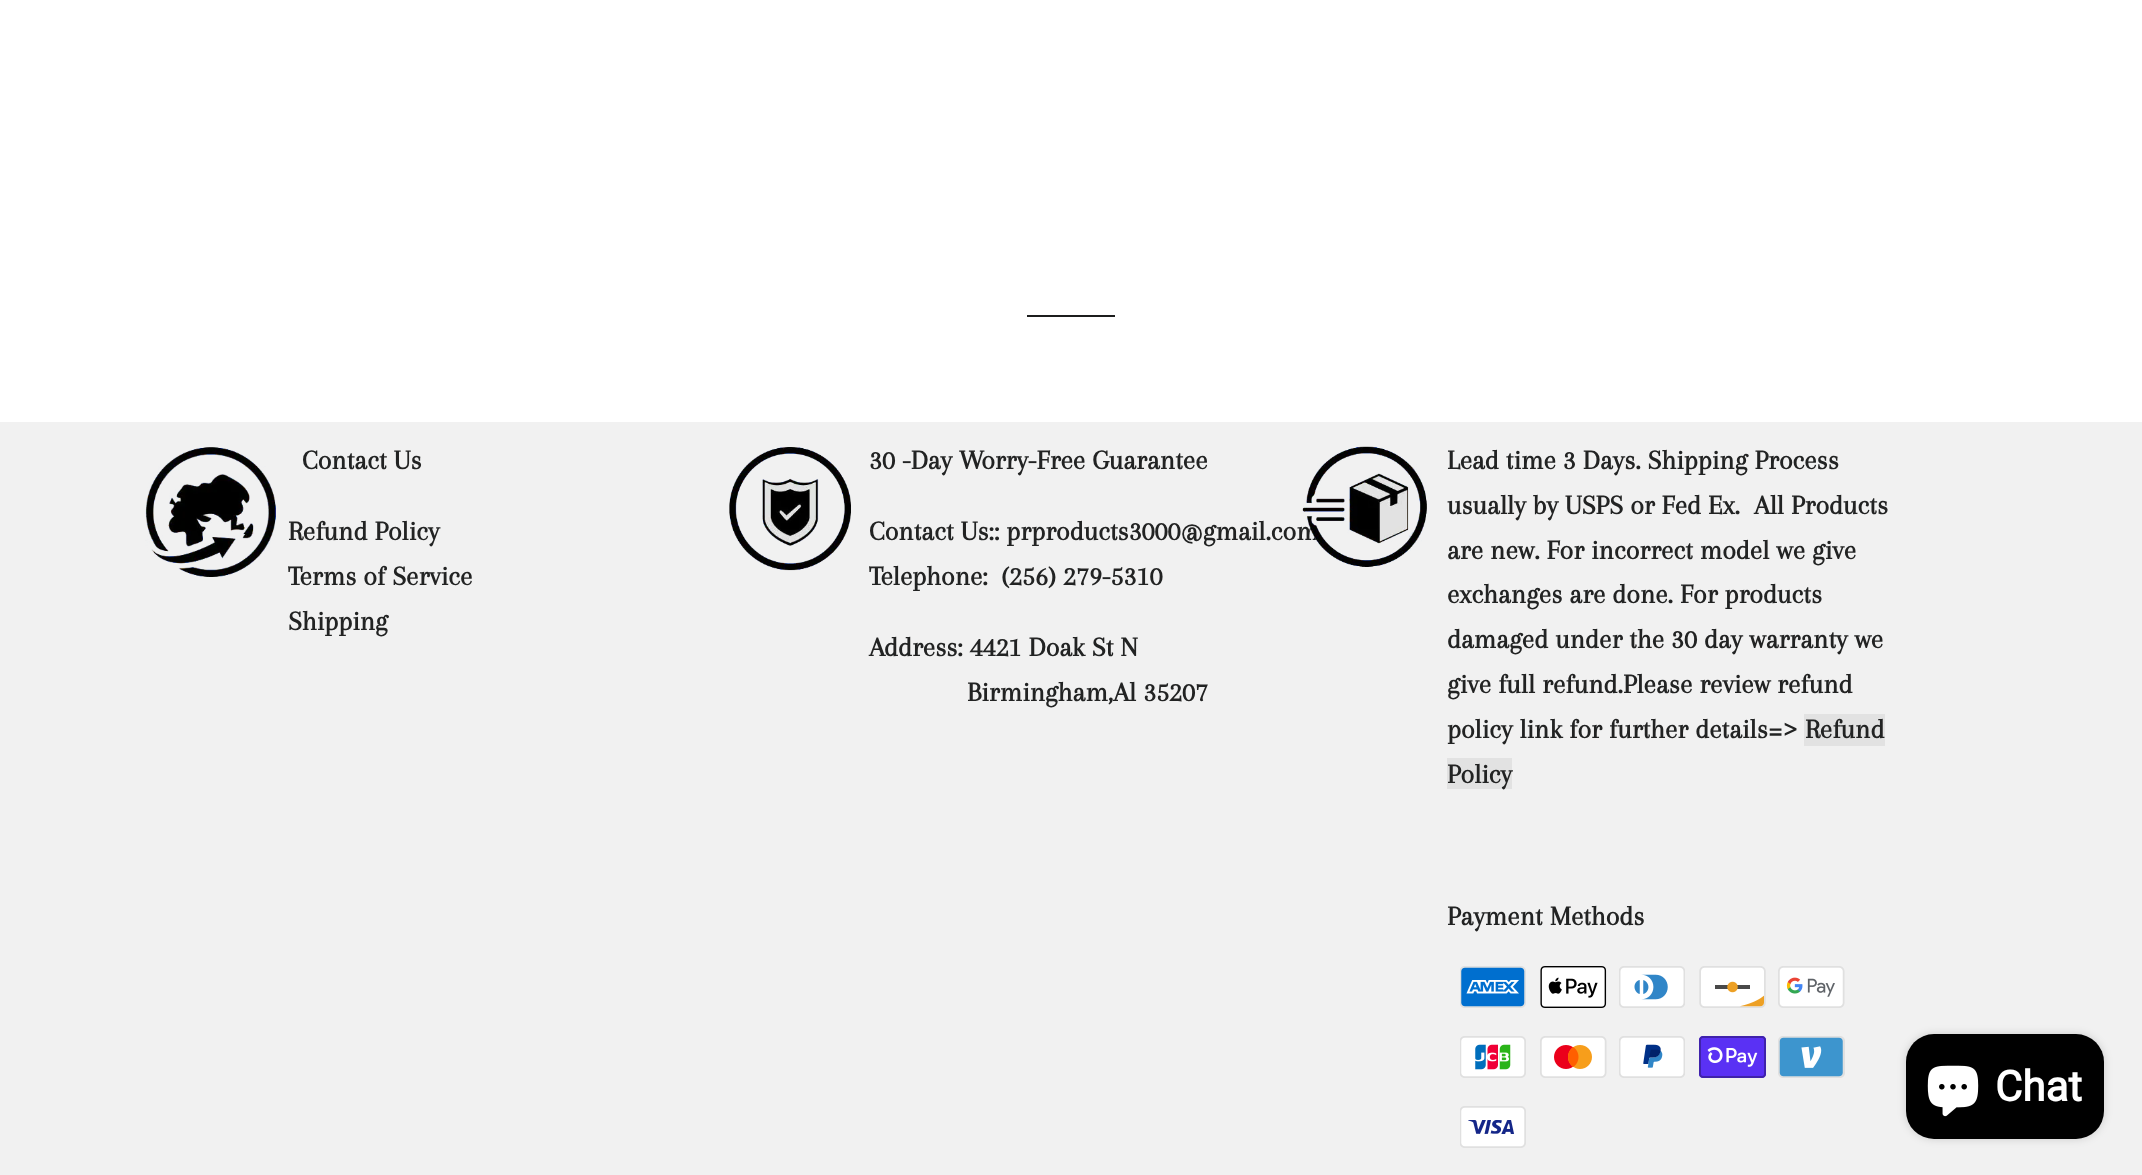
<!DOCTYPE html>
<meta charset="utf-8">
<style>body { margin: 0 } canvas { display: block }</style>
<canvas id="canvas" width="2142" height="1175"></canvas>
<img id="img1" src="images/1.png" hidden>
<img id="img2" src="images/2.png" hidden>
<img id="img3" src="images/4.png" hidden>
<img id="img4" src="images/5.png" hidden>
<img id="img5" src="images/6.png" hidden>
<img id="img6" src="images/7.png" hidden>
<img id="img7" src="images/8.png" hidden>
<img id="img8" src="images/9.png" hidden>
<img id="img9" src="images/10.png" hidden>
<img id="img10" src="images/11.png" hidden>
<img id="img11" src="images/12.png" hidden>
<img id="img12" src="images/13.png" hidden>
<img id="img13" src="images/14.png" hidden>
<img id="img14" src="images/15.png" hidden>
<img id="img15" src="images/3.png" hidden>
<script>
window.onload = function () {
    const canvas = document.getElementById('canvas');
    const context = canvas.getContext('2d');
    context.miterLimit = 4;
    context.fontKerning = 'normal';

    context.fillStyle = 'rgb(255, 255, 255)';
    context.fillRect(0, 0, 2142, 1175);
    context.fillStyle = 'rgb(28, 29, 29)';
    context.fillRect(1027, 315, 88, 2);
    context.fillStyle = 'rgb(241, 241, 241)';
    context.fillRect(0, 422, 2142, 753);
    context.drawImage(document.getElementById('img1'), 145, 447, 131, 130);
    context.drawImage(document.getElementById('img2'), 729, 447, 122, 124);
    context.fillStyle = 'rgb(226, 226, 226)';
    context.fillRect(1804, 714, 81, 32);
    context.fillRect(1447, 758, 65, 31);
    context.drawImage(document.getElementById('img3'), 1460, 966, 66, 42);
    context.drawImage(document.getElementById('img4'), 1540, 966, 67, 42);
    context.drawImage(document.getElementById('img5'), 1619, 966, 66, 42);
    context.drawImage(document.getElementById('img6'), 1699, 966, 67, 42);
    context.drawImage(document.getElementById('img7'), 1778, 966, 67, 42);
    context.drawImage(document.getElementById('img8'), 1460, 1036, 66, 42);
    context.drawImage(document.getElementById('img9'), 1540, 1036, 67, 42);
    context.drawImage(document.getElementById('img10'), 1619, 1036, 66, 42);
    context.drawImage(document.getElementById('img11'), 1699, 1036, 67, 42);
    context.drawImage(document.getElementById('img12'), 1778, 1036, 67, 42);
    context.drawImage(document.getElementById('img13'), 1460, 1106, 66, 42);
    context.fillStyle = 'rgba(0, 0, 0, 0.15)';
    context.filter = 'blur(4.5px)';
    context.beginPath();
    context.roundRect(1906, 1034, 198, 105, 28);
    context.fill();
    context.filter = 'none';
    context.fillStyle = 'rgb(0, 0, 0)';
    context.beginPath();
    context.roundRect(1906, 1034, 198, 105, 28);
    context.fill();
    context.drawImage(document.getElementById('img14'), 1927, 1065, 52, 52);
    context.font = 'bold 28px Arapey';
    context.fillStyle = 'rgb(34, 35, 35)';
    context.fillText('Contact Us', 302, 469);
    context.fillText('Refund Policy', 288, 540);
    context.fillText('Terms of Service', 288, 585);
    context.fillText('Shipping', 288, 630);
    context.fillText('30 -Day Worry-Free Guarantee', 869, 469);
    context.fillText('Contact Us:: prproducts3000@gmail.com', 869, 540);
    context.fillText('Telephone:', 869, 585);
    context.fillText('(256) 279-5310', 1001, 585);
    context.fillText('Address: 4421 Doak St N', 869, 656);
    context.fillText('Birmingham,Al 35207', 967, 701);
    context.drawImage(document.getElementById('img15'), 1302, 446, 125, 121);
    context.fillText('Lead time 3 Days. Shipping Process', 1447, 469);
    context.fillText('usually by USPS or Fed Ex.  All Products', 1447, 514);
    context.fillText('are new. For incorrect model we give', 1447, 559);
    context.fillText('exchanges are done. For products', 1447, 603);
    context.fillText('damaged under the 30 day warranty we', 1447, 648);
    context.fillText('give full refund.Please review refund', 1447, 693);
    context.fillText('policy link for further details=>', 1447, 738);
    context.fillText('Refund', 1805, 738);
    context.fillText('Policy', 1447, 783);
    context.fillText('Payment Methods', 1447, 925);
    context.font = 'bold 42px Roboto';
    context.fillStyle = 'rgb(255, 255, 255)';
    context.fillText('Chat', 1995, 1101);
};
</script>
